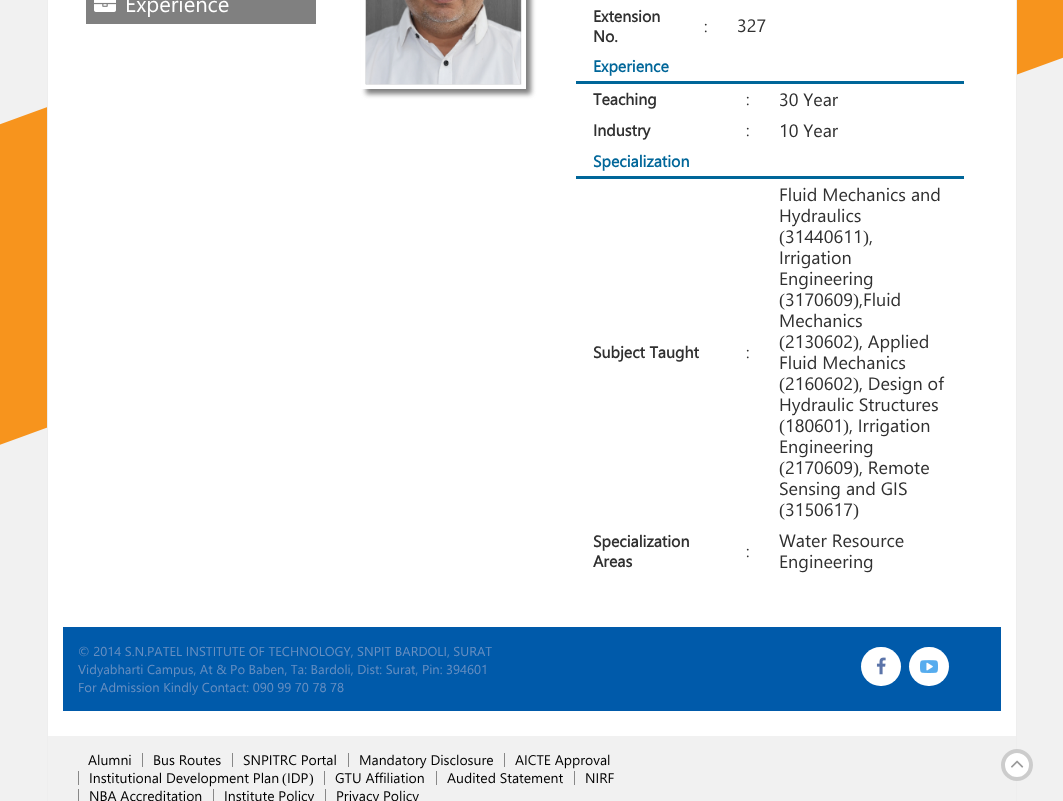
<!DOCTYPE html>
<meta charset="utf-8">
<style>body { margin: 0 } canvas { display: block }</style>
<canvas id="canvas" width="1063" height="801"></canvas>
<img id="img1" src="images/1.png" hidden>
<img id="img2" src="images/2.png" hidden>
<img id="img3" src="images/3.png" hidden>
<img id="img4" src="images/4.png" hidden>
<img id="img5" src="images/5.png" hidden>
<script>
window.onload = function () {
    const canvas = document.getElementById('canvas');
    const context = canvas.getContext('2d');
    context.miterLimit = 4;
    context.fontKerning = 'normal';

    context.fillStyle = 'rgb(241, 241, 241)';
    context.fillRect(0, 0, 1063, 801);
    context.fillStyle = 'rgb(247, 148, 29)';
    context.beginPath();
    context.moveTo(-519, 313);
    context.lineTo(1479, -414);
    context.lineTo(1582, -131);
    context.lineTo(-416, 596);
    context.closePath();
    context.fill();
    context.fillStyle = 'rgb(255, 255, 255)';
    context.fillRect(48, 0, 968, 736);
    context.fillStyle = 'rgb(128, 128, 128)';
    context.fillRect(86, 0, 230, 24);
    context.drawImage(document.getElementById('img1'), 94, 0, 22, 12);
    context.save();
    context.beginPath();
    context.moveTo(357, 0);
    context.lineTo(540, 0);
    context.lineTo(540, 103);
    context.lineTo(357, 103);
    context.closePath();
    context.moveTo(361, -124);
    context.lineTo(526, -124);
    context.lineTo(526, 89);
    context.lineTo(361, 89);
    context.closePath();
    context.clip('evenodd');
    context.filter = 'blur(2.5px)';
    context.beginPath();
    context.rect(366, -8, 165, 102);
    context.fill();
    context.filter = 'none';
    context.restore();
    context.drawImage(document.getElementById('img2'), 365, 0, 157, 85);
    context.fillStyle = 'rgb(0, 102, 153)';
    context.fillRect(576, 81, 388, 3);
    context.fillRect(576, 176, 388, 3);
    context.fillStyle = 'rgb(238, 238, 238)';
    context.fillRect(1016, 0, 1, 801);
    context.fillRect(47, 0, 1, 801);
    context.fillStyle = 'rgb(0, 90, 170)';
    context.fillRect(63, 627, 938, 84);
    context.fillStyle = 'rgb(255, 255, 255)';
    context.beginPath();
    context.roundRect(861, 647, 40, 39, 19.5);
    context.fill();
    context.drawImage(document.getElementById('img3'), 876, 657, 10, 18);
    context.beginPath();
    context.roundRect(909, 647, 40, 39, 19.5);
    context.fill();
    context.drawImage(document.getElementById('img4'), 920, 660, 18, 13);
    context.fillStyle = 'rgb(136, 136, 136)';
    context.fillRect(142, 753, 1, 14);
    context.fillRect(232, 753, 1, 14);
    context.fillRect(348, 753, 1, 14);
    context.fillRect(504, 753, 1, 14);
    context.fillRect(78, 771, 1, 14);
    context.fillRect(324, 771, 1, 14);
    context.fillRect(436, 771, 1, 14);
    context.fillRect(574, 771, 1, 14);
    context.fillRect(78, 789, 1, 12);
    context.fillRect(213, 789, 1, 12);
    context.fillRect(325, 789, 1, 12);
    context.fillStyle = 'rgb(255, 255, 255)';
    context.beginPath();
    context.arc(1017, 765, 16, 0, 2 * Math.PI);
    context.fill();
    context.beginPath();
    context.arc(1017, 765, 14, 0, 2 * Math.PI);
    context.strokeStyle = 'rgba(153, 153, 153, 0.5)';
    context.lineWidth = 4;
    context.stroke();
    context.drawImage(document.getElementById('img5'), 1011, 760, 13, 8);
    context.font = '22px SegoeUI';
    context.fillText('Experience', 125, 12);
    context.font = 'bold 16px SegoeUI';
    context.fillStyle = 'rgb(48, 48, 48)';
    context.fillText('Extension', 593, 22);
    context.fillText('No.', 593, 42);
    context.font = '16px SegoeUI';
    context.fillText(':', 704, 32);
    context.font = '18px SegoeUI';
    context.fillText('327', 737, 32);
    context.font = 'bold 16px SegoeUI';
    context.fillStyle = 'rgb(0, 102, 153)';
    context.fillText('Experience', 593, 72);
    context.fillStyle = 'rgb(48, 48, 48)';
    context.fillText('Teaching', 593, 105);
    context.font = '16px SegoeUI';
    context.fillText(':', 746, 105);
    context.font = '18px SegoeUI';
    context.fillText('30 Year', 779, 106);
    context.font = 'bold 16px SegoeUI';
    context.fillText('Industry', 593, 136);
    context.font = '16px SegoeUI';
    context.fillText(':', 746, 136);
    context.font = '18px SegoeUI';
    context.fillText('10 Year', 779, 137);
    context.font = 'bold 16px SegoeUI';
    context.fillStyle = 'rgb(0, 102, 153)';
    context.fillText('Specialization', 593, 167);
    context.fillStyle = 'rgb(48, 48, 48)';
    context.fillText('Subject Taught', 593, 358);
    context.font = '16px SegoeUI';
    context.fillText(':', 746, 358);
    context.font = '18px SegoeUI';
    context.fillText('Fluid Mechanics and', 779, 201);
    context.fillText('Hydraulics', 779, 222);
    context.font = '18px Liberation Serif';
    context.fillText('(', 779, 243);
    context.font = '18px SegoeUI';
    context.fillText('31440611', 785, 243);
    context.font = '18px Liberation Serif';
    context.fillText(')', 863, 243);
    context.font = '18px SegoeUI';
    context.fillText(',', 869, 243);
    context.fillText('Irrigation', 779, 264);
    context.fillText('Engineering', 779, 285);
    context.font = '18px Liberation Serif';
    context.fillText('(', 779, 306);
    context.font = '18px SegoeUI';
    context.fillText('3170609', 785, 306);
    context.font = '18px Liberation Serif';
    context.fillText(')', 853, 306);
    context.font = '18px SegoeUI';
    context.fillText(',Fluid', 859, 306);
    context.fillText('Mechanics', 779, 327);
    context.font = '18px Liberation Serif';
    context.fillText('(', 779, 348);
    context.font = '18px SegoeUI';
    context.fillText('2130602', 785, 348);
    context.font = '18px Liberation Serif';
    context.fillText(')', 853, 348);
    context.font = '18px SegoeUI';
    context.fillText(', Applied', 859, 348);
    context.fillText('Fluid Mechanics', 779, 369);
    context.font = '18px Liberation Serif';
    context.fillText('(', 779, 390);
    context.font = '18px SegoeUI';
    context.fillText('2160602', 785, 390);
    context.font = '18px Liberation Serif';
    context.fillText(')', 853, 390);
    context.font = '18px SegoeUI';
    context.fillText(', Design of', 859, 390);
    context.fillText('Hydraulic Structures', 779, 411);
    context.font = '18px Liberation Serif';
    context.fillText('(', 779, 432);
    context.font = '18px SegoeUI';
    context.fillText('180601', 785, 432);
    context.font = '18px Liberation Serif';
    context.fillText(')', 843, 432);
    context.font = '18px SegoeUI';
    context.fillText(', Irrigation', 849, 432);
    context.fillText('Engineering', 779, 453);
    context.font = '18px Liberation Serif';
    context.fillText('(', 779, 474);
    context.font = '18px SegoeUI';
    context.fillText('2170609', 785, 474);
    context.font = '18px Liberation Serif';
    context.fillText(')', 853, 474);
    context.font = '18px SegoeUI';
    context.fillText(', Remote', 859, 474);
    context.fillText('Sensing and GIS', 779, 495);
    context.font = '18px Liberation Serif';
    context.fillText('(', 779, 516);
    context.font = '18px SegoeUI';
    context.fillText('3150617', 785, 516);
    context.font = '18px Liberation Serif';
    context.fillText(')', 853, 516);
    context.font = 'bold 16px SegoeUI';
    context.fillText('Specialization', 593, 547);
    context.fillText('Areas', 593, 567);
    context.font = '16px SegoeUI';
    context.fillText(':', 746, 557);
    context.font = '18px SegoeUI';
    context.fillText('Water Resource', 779, 547);
    context.fillText('Engineering', 779, 568);
    context.font = '13px SegoeUI';
    context.fillStyle = 'rgb(103, 143, 193)';
    context.fillText('© 2014 S.N.PATEL INSTITUTE OF TECHNOLOGY, SNPIT BARDOLI, SURAT', 78, 656);
    context.fillText('Vidyabharti Campus, At & Po Baben, Ta: Bardoli, Dist: Surat, Pin: 394601', 78, 674);
    context.fillText('For Admission Kindly Contact: 090 99 70 78 78', 78, 692);
    context.font = '14px SegoeUI';
    context.fillStyle = 'rgb(0, 0, 0)';
    context.fillText('Alumni', 88, 765);
    context.fillText('Bus Routes', 153, 765);
    context.fillText('SNPITRC Portal', 243, 765);
    context.fillText('Mandatory Disclosure', 359, 765);
    context.fillText('AICTE Approval', 515, 765);
    context.fillText('Institutional Development Plan', 89, 783);
    context.font = '14px Liberation Serif';
    context.fillText('(', 282, 783);
    context.font = '14px SegoeUI';
    context.fillText('IDP', 287, 783);
    context.font = '14px Liberation Serif';
    context.fillText(')', 309, 783);
    context.font = '14px SegoeUI';
    context.fillText('GTU Affiliation', 335, 783);
    context.fillText('Audited Statement', 447, 783);
    context.fillText('NIRF', 585, 783);
    context.fillText('NBA Accreditation', 89, 801);
    context.fillText('Institute Policy', 224, 801);
    context.fillText('Privacy Policy', 336, 801);
};
</script>
